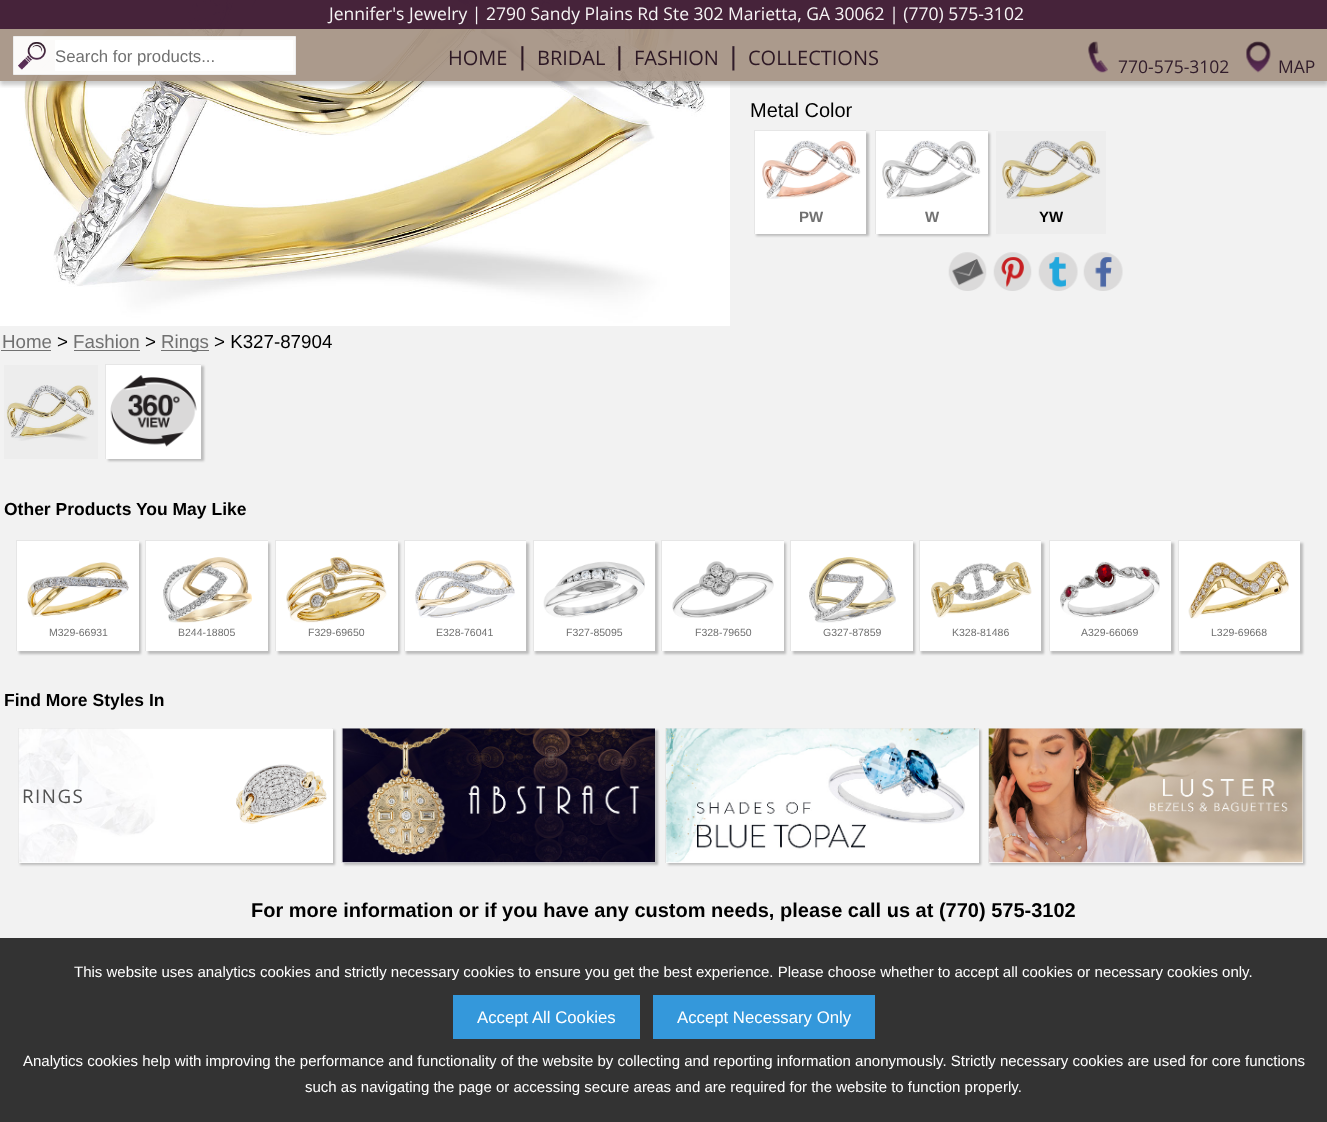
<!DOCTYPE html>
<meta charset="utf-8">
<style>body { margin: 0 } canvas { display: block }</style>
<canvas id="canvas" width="1327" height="1122"></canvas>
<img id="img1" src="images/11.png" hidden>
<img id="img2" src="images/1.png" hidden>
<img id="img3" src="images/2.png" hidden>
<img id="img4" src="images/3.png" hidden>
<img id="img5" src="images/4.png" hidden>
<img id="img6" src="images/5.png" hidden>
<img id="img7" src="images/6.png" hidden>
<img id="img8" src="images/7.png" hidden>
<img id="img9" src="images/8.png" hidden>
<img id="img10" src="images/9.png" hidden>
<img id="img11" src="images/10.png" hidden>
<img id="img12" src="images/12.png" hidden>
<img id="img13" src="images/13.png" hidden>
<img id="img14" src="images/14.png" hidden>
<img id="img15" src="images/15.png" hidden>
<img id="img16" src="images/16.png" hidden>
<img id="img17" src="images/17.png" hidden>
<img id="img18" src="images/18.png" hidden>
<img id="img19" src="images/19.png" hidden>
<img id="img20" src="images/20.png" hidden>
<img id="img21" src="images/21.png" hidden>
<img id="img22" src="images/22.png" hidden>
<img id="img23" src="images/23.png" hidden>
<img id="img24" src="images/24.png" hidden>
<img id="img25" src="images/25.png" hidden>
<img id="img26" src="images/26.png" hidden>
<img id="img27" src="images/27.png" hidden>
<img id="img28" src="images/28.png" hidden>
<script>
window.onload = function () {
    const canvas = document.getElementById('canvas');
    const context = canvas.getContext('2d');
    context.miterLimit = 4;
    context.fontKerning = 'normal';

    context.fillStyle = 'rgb(242, 242, 242)';
    context.fillRect(0, 0, 1327, 1122);
    context.drawImage(document.getElementById('img1'), 0, 0, 730, 326);
    context.save();
    context.beginPath();
    context.rect(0, 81, 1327, 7);
    context.clip();
    context.fillStyle = 'rgba(119, 119, 119, 0.4)';
    context.filter = 'blur(2px)';
    context.beginPath();
    context.rect(0, 4, 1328, 81);
    context.fill();
    context.filter = 'none';
    context.restore();
    context.fillStyle = 'rgba(166, 149, 134, 0.95)';
    context.fillRect(0, 0, 1327, 81);
    context.fillStyle = 'rgba(64, 28, 54, 0.95)';
    context.fillRect(0, 0, 1327, 29);
    context.fillStyle = 'rgba(255, 255, 255, 0.95)';
    context.beginPath();
    context.rect(13.5, 36.5, 282, 38);
    context.fill();
    context.strokeStyle = 'rgb(237, 237, 237)';
    context.stroke();
    context.drawImage(document.getElementById('img2'), 18, 42, 28, 28);
    context.fillStyle = 'rgb(255, 255, 255)';
    context.fillRect(55, 40, 238, 31);
    context.drawImage(document.getElementById('img3'), 1088, 41, 20, 32);
    context.drawImage(document.getElementById('img4'), 1246, 41, 25, 32);
    context.fillStyle = 'rgba(180, 180, 180, 0.85)';
    context.filter = 'blur(1px)';
    context.beginPath();
    context.rect(756, 133, 113, 103);
    context.fill();
    context.filter = 'none';
    context.fillStyle = 'rgb(255, 255, 255)';
    context.fillRect(755, 131, 111, 103);
    context.fillStyle = 'rgb(230, 230, 230)';
    context.fillRect(754, 130, 112, 1);
    context.fillRect(754, 130, 1, 104);
    context.drawImage(document.getElementById('img5'), 762, 140, 99, 59);
    context.fillStyle = 'rgba(180, 180, 180, 0.85)';
    context.filter = 'blur(1px)';
    context.beginPath();
    context.rect(878, 133, 112, 103);
    context.fill();
    context.filter = 'none';
    context.fillStyle = 'rgb(255, 255, 255)';
    context.fillRect(876, 131, 112, 103);
    context.fillStyle = 'rgb(230, 230, 230)';
    context.fillRect(875, 130, 113, 1);
    context.fillRect(875, 130, 1, 104);
    context.drawImage(document.getElementById('img6'), 882, 140, 99, 59);
    context.fillStyle = 'rgb(237, 237, 237)';
    context.fillRect(996, 131, 110, 103);
    context.drawImage(document.getElementById('img7'), 1002, 140, 99, 59);
    context.drawImage(document.getElementById('img8'), 948, 252, 39, 39);
    context.drawImage(document.getElementById('img9'), 993, 252, 39, 39);
    context.drawImage(document.getElementById('img10'), 1038, 252, 40, 39);
    context.drawImage(document.getElementById('img11'), 1083, 252, 40, 39);
    context.fillStyle = 'rgb(113, 113, 113)';
    context.fillRect(1, 350, 50, 1);
    context.fillRect(74, 350, 66, 1);
    context.fillRect(161, 350, 48, 1);
    context.fillStyle = 'rgb(237, 237, 237)';
    context.fillRect(4, 365, 94, 94);
    context.drawImage(document.getElementById('img12'), 6, 385, 89, 56);
    context.fillStyle = 'rgba(180, 180, 180, 0.85)';
    context.filter = 'blur(1px)';
    context.beginPath();
    context.rect(108, 366, 96, 95);
    context.fill();
    context.filter = 'none';
    context.fillStyle = 'rgb(255, 255, 255)';
    context.fillRect(106, 365, 95, 94);
    context.fillStyle = 'rgb(230, 230, 230)';
    context.fillRect(105, 364, 96, 1);
    context.fillRect(105, 364, 1, 95);
    context.drawImage(document.getElementById('img13'), 110, 375, 87, 72);
    context.fillStyle = 'rgba(180, 180, 180, 0.85)';
    context.filter = 'blur(1px)';
    context.beginPath();
    context.rect(19, 543, 122, 111);
    context.fill();
    context.filter = 'none';
    context.fillStyle = 'rgb(255, 255, 255)';
    context.fillRect(17, 541, 122, 110);
    context.fillStyle = 'rgb(230, 230, 230)';
    context.fillRect(16, 540, 123, 1);
    context.fillRect(16, 540, 1, 111);
    context.drawImage(document.getElementById('img14'), 27, 562, 102, 55);
    context.fillStyle = 'rgba(180, 180, 180, 0.85)';
    context.filter = 'blur(1px)';
    context.beginPath();
    context.rect(148, 543, 122, 111);
    context.fill();
    context.filter = 'none';
    context.fillStyle = 'rgb(255, 255, 255)';
    context.fillRect(146, 541, 122, 110);
    context.fillStyle = 'rgb(230, 230, 230)';
    context.fillRect(145, 540, 123, 1);
    context.fillRect(145, 540, 1, 111);
    context.drawImage(document.getElementById('img15'), 163, 557, 89, 66);
    context.fillStyle = 'rgba(180, 180, 180, 0.85)';
    context.filter = 'blur(1px)';
    context.beginPath();
    context.rect(278, 543, 122, 111);
    context.fill();
    context.filter = 'none';
    context.fillStyle = 'rgb(255, 255, 255)';
    context.fillRect(276, 541, 122, 110);
    context.fillStyle = 'rgb(230, 230, 230)';
    context.fillRect(275, 540, 123, 1);
    context.fillRect(275, 540, 1, 111);
    context.drawImage(document.getElementById('img16'), 286, 557, 101, 66);
    context.fillStyle = 'rgba(180, 180, 180, 0.85)';
    context.filter = 'blur(1px)';
    context.beginPath();
    context.rect(406, 543, 123, 111);
    context.fill();
    context.filter = 'none';
    context.fillStyle = 'rgb(255, 255, 255)';
    context.fillRect(405, 541, 121, 110);
    context.fillStyle = 'rgb(230, 230, 230)';
    context.fillRect(404, 540, 122, 1);
    context.fillRect(404, 540, 1, 111);
    context.drawImage(document.getElementById('img17'), 415, 560, 100, 58);
    context.fillStyle = 'rgba(180, 180, 180, 0.85)';
    context.filter = 'blur(1px)';
    context.beginPath();
    context.rect(535, 543, 123, 111);
    context.fill();
    context.filter = 'none';
    context.fillStyle = 'rgb(255, 255, 255)';
    context.fillRect(534, 541, 121, 110);
    context.fillStyle = 'rgb(230, 230, 230)';
    context.fillRect(533, 540, 122, 1);
    context.fillRect(533, 540, 1, 111);
    context.drawImage(document.getElementById('img18'), 543, 561, 102, 57);
    context.fillStyle = 'rgba(180, 180, 180, 0.85)';
    context.filter = 'blur(1px)';
    context.beginPath();
    context.rect(664, 543, 122, 111);
    context.fill();
    context.filter = 'none';
    context.fillStyle = 'rgb(255, 255, 255)';
    context.fillRect(662, 541, 122, 110);
    context.fillStyle = 'rgb(230, 230, 230)';
    context.fillRect(661, 540, 123, 1);
    context.fillRect(661, 540, 1, 111);
    context.drawImage(document.getElementById('img19'), 672, 561, 102, 57);
    context.fillStyle = 'rgba(180, 180, 180, 0.85)';
    context.filter = 'blur(1px)';
    context.beginPath();
    context.rect(793, 543, 122, 111);
    context.fill();
    context.filter = 'none';
    context.fillStyle = 'rgb(255, 255, 255)';
    context.fillRect(791, 541, 122, 110);
    context.fillStyle = 'rgb(230, 230, 230)';
    context.fillRect(790, 540, 123, 1);
    context.fillRect(790, 540, 1, 111);
    context.drawImage(document.getElementById('img20'), 809, 557, 87, 66);
    context.fillStyle = 'rgba(180, 180, 180, 0.85)';
    context.filter = 'blur(1px)';
    context.beginPath();
    context.rect(921, 543, 123, 111);
    context.fill();
    context.filter = 'none';
    context.fillStyle = 'rgb(255, 255, 255)';
    context.fillRect(920, 541, 121, 110);
    context.fillStyle = 'rgb(230, 230, 230)';
    context.fillRect(919, 540, 122, 1);
    context.fillRect(919, 540, 1, 111);
    context.drawImage(document.getElementById('img21'), 931, 561, 101, 57);
    context.fillStyle = 'rgba(180, 180, 180, 0.85)';
    context.filter = 'blur(1px)';
    context.beginPath();
    context.rect(1051, 543, 123, 111);
    context.fill();
    context.filter = 'none';
    context.fillStyle = 'rgb(255, 255, 255)';
    context.fillRect(1050, 541, 121, 110);
    context.fillStyle = 'rgb(230, 230, 230)';
    context.fillRect(1049, 540, 122, 1);
    context.fillRect(1049, 540, 1, 111);
    context.drawImage(document.getElementById('img22'), 1060, 561, 100, 57);
    context.fillStyle = 'rgba(180, 180, 180, 0.85)';
    context.filter = 'blur(1px)';
    context.beginPath();
    context.rect(1180, 543, 123, 111);
    context.fill();
    context.filter = 'none';
    context.fillStyle = 'rgb(255, 255, 255)';
    context.fillRect(1179, 541, 121, 110);
    context.fillStyle = 'rgb(230, 230, 230)';
    context.fillRect(1178, 540, 122, 1);
    context.fillRect(1178, 540, 1, 111);
    context.drawImage(document.getElementById('img23'), 1188, 560, 101, 59);
    context.fillStyle = 'rgba(180, 180, 180, 0.85)';
    context.filter = 'blur(1px)';
    context.beginPath();
    context.rect(20, 730, 315, 135);
    context.fill();
    context.filter = 'none';
    context.fillStyle = 'rgb(255, 255, 255)';
    context.fillRect(19, 729, 314, 134);
    context.fillStyle = 'rgb(230, 230, 230)';
    context.fillRect(18, 728, 315, 1);
    context.fillRect(18, 728, 1, 135);
    context.drawImage(document.getElementById('img24'), 18, 728, 315, 135);
    context.drawImage(document.getElementById('img25'), 236, 764, 91, 60);
    context.fillStyle = 'rgba(180, 180, 180, 0.85)';
    context.filter = 'blur(1px)';
    context.beginPath();
    context.rect(344, 730, 314, 135);
    context.fill();
    context.filter = 'none';
    context.fillStyle = 'rgb(255, 255, 255)';
    context.fillRect(342, 729, 313, 134);
    context.fillStyle = 'rgb(230, 230, 230)';
    context.fillRect(341, 728, 314, 1);
    context.fillRect(341, 728, 1, 135);
    context.drawImage(document.getElementById('img26'), 342, 728, 313, 135);
    context.fillStyle = 'rgba(180, 180, 180, 0.85)';
    context.filter = 'blur(1px)';
    context.beginPath();
    context.rect(668, 730, 313, 135);
    context.fill();
    context.filter = 'none';
    context.fillStyle = 'rgb(255, 255, 255)';
    context.fillRect(666, 729, 313, 134);
    context.fillStyle = 'rgb(230, 230, 230)';
    context.fillRect(665, 728, 314, 1);
    context.fillRect(665, 728, 1, 135);
    context.drawImage(document.getElementById('img27'), 666, 728, 313, 135);
    context.fillStyle = 'rgba(180, 180, 180, 0.85)';
    context.filter = 'blur(1px)';
    context.beginPath();
    context.rect(990, 730, 315, 135);
    context.fill();
    context.filter = 'none';
    context.fillStyle = 'rgb(255, 255, 255)';
    context.fillRect(989, 729, 314, 134);
    context.fillStyle = 'rgb(230, 230, 230)';
    context.fillRect(988, 728, 315, 1);
    context.fillRect(988, 728, 1, 135);
    context.drawImage(document.getElementById('img28'), 988, 728, 315, 135);
    context.fillStyle = 'rgb(51, 51, 51)';
    context.fillRect(0, 938, 1327, 184);
    context.fillStyle = 'rgb(52, 152, 219)';
    context.fillRect(453, 995, 187, 44);
    context.fillRect(653, 995, 222, 44);
    context.font = '17.5px Open Sans';
    context.fillStyle = 'rgb(246, 244, 245)';
    context.fillText('Jennifer\'s Jewelry | 2790 Sandy Plains Rd Ste 302 Marietta, GA 30062 | (770) 575-3102', 329, 20);
    context.font = '16.75px Liberation Sans';
    context.fillStyle = 'rgb(113, 113, 113)';
    context.fillText('Search for products...', 55, 62);
    context.font = '20px Open Sans';
    context.fillStyle = 'rgb(45, 24, 36)';
    context.fillText('HOME', 448, 65);
    context.font = '26px Liberation Sans';
    context.fillText('|', 519, 65);
    context.font = '20px Open Sans';
    context.fillText('BRIDAL', 537, 65);
    context.font = '26px Liberation Sans';
    context.fillText('|', 616, 65);
    context.font = '20px Open Sans';
    context.fillText('FASHION', 634, 65);
    context.font = '26px Liberation Sans';
    context.fillStyle = 'rgb(48, 28, 42)';
    context.fillText('|', 730, 65);
    context.font = '20px Open Sans';
    context.fillStyle = 'rgb(45, 24, 36)';
    context.fillText('COLLECTIONS', 748, 65);
    context.font = '17.5px Open Sans';
    context.fillStyle = 'rgb(48, 28, 42)';
    context.fillText('770-575-3102', 1118, 73);
    context.fillText('MAP', 1278, 73);
    context.font = '20px Liberation Sans';
    context.fillStyle = 'rgb(0, 0, 0)';
    context.fillText('Metal Color', 750, 117);
    context.font = 'bold 15px Liberation Sans';
    context.fillStyle = 'rgb(113, 113, 113)';
    context.fillText('PW', 799, 222);
    context.fillText('W', 925, 222);
    context.fillStyle = 'rgb(0, 0, 0)';
    context.fillText('YW', 1039, 222);
    context.font = '18.75px Liberation Sans';
    context.fillStyle = 'rgb(113, 113, 113)';
    context.fillText('Home', 2, 348);
    context.fillStyle = 'rgb(0, 0, 0)';
    context.fillText('>', 57, 348);
    context.fillStyle = 'rgb(113, 113, 113)';
    context.fillText('Fashion', 73, 348);
    context.fillStyle = 'rgb(0, 0, 0)';
    context.fillText('>', 145, 348);
    context.fillStyle = 'rgb(113, 113, 113)';
    context.fillText('Rings', 161, 348);
    context.fillStyle = 'rgb(0, 0, 0)';
    context.fillText('> K327-87904', 214, 348);
    context.font = 'bold 17.5px Liberation Sans';
    context.fillText('Other Products You May Like', 4, 515);
    context.font = '10.5px Liberation Sans';
    context.fillStyle = 'rgb(113, 113, 113)';
    context.fillText('M329-66931', 49, 636);
    context.fillText('B244-18805', 178, 636);
    context.fillText('F329-69650', 308, 636);
    context.fillText('E328-76041', 436, 636);
    context.fillText('F327-85095', 566, 636);
    context.fillText('F328-79650', 695, 636);
    context.fillText('G327-87859', 823, 636);
    context.fillText('K328-81486', 952, 636);
    context.fillText('A329-66069', 1081, 636);
    context.fillText('L329-69668', 1211, 636);
    context.font = 'bold 17.5px Liberation Sans';
    context.fillStyle = 'rgb(0, 0, 0)';
    context.fillText('Find More Styles In', 4, 706);
    context.letterSpacing = '1.5px';
    context.font = '18.75px Open Sans';
    context.fillStyle = 'rgb(83, 83, 83)';
    context.fillText('RINGS', 22, 803);
    context.letterSpacing = '0px';
    context.font = 'bold 20px Liberation Sans';
    context.fillStyle = 'rgb(0, 0, 0)';
    context.fillText('For more information or if you have any custom needs, please call us at (770) 575-3102', 251, 917);
    context.font = '15px Liberation Sans';
    context.fillStyle = 'rgb(255, 255, 255)';
    context.fillText('This website uses analytics cookies and strictly necessary cookies to ensure you get the best experience. Please choose whether to accept all cookies or necessary cookies only.', 74, 977);
    context.font = '16.75px Liberation Sans';
    context.fillText('Accept All Cookies', 477, 1023);
    context.fillText('Accept Necessary Only', 677, 1023);
    context.font = '15px Liberation Sans';
    context.fillText('Analytics cookies help with improving the performance and functionality of the website by collecting and reporting information anonymously. Strictly necessary cookies are used for core functions', 23, 1066);
    context.fillText('such as navigating the page or accessing secure areas and are required for the website to function properly.', 305, 1092);
};
</script>
